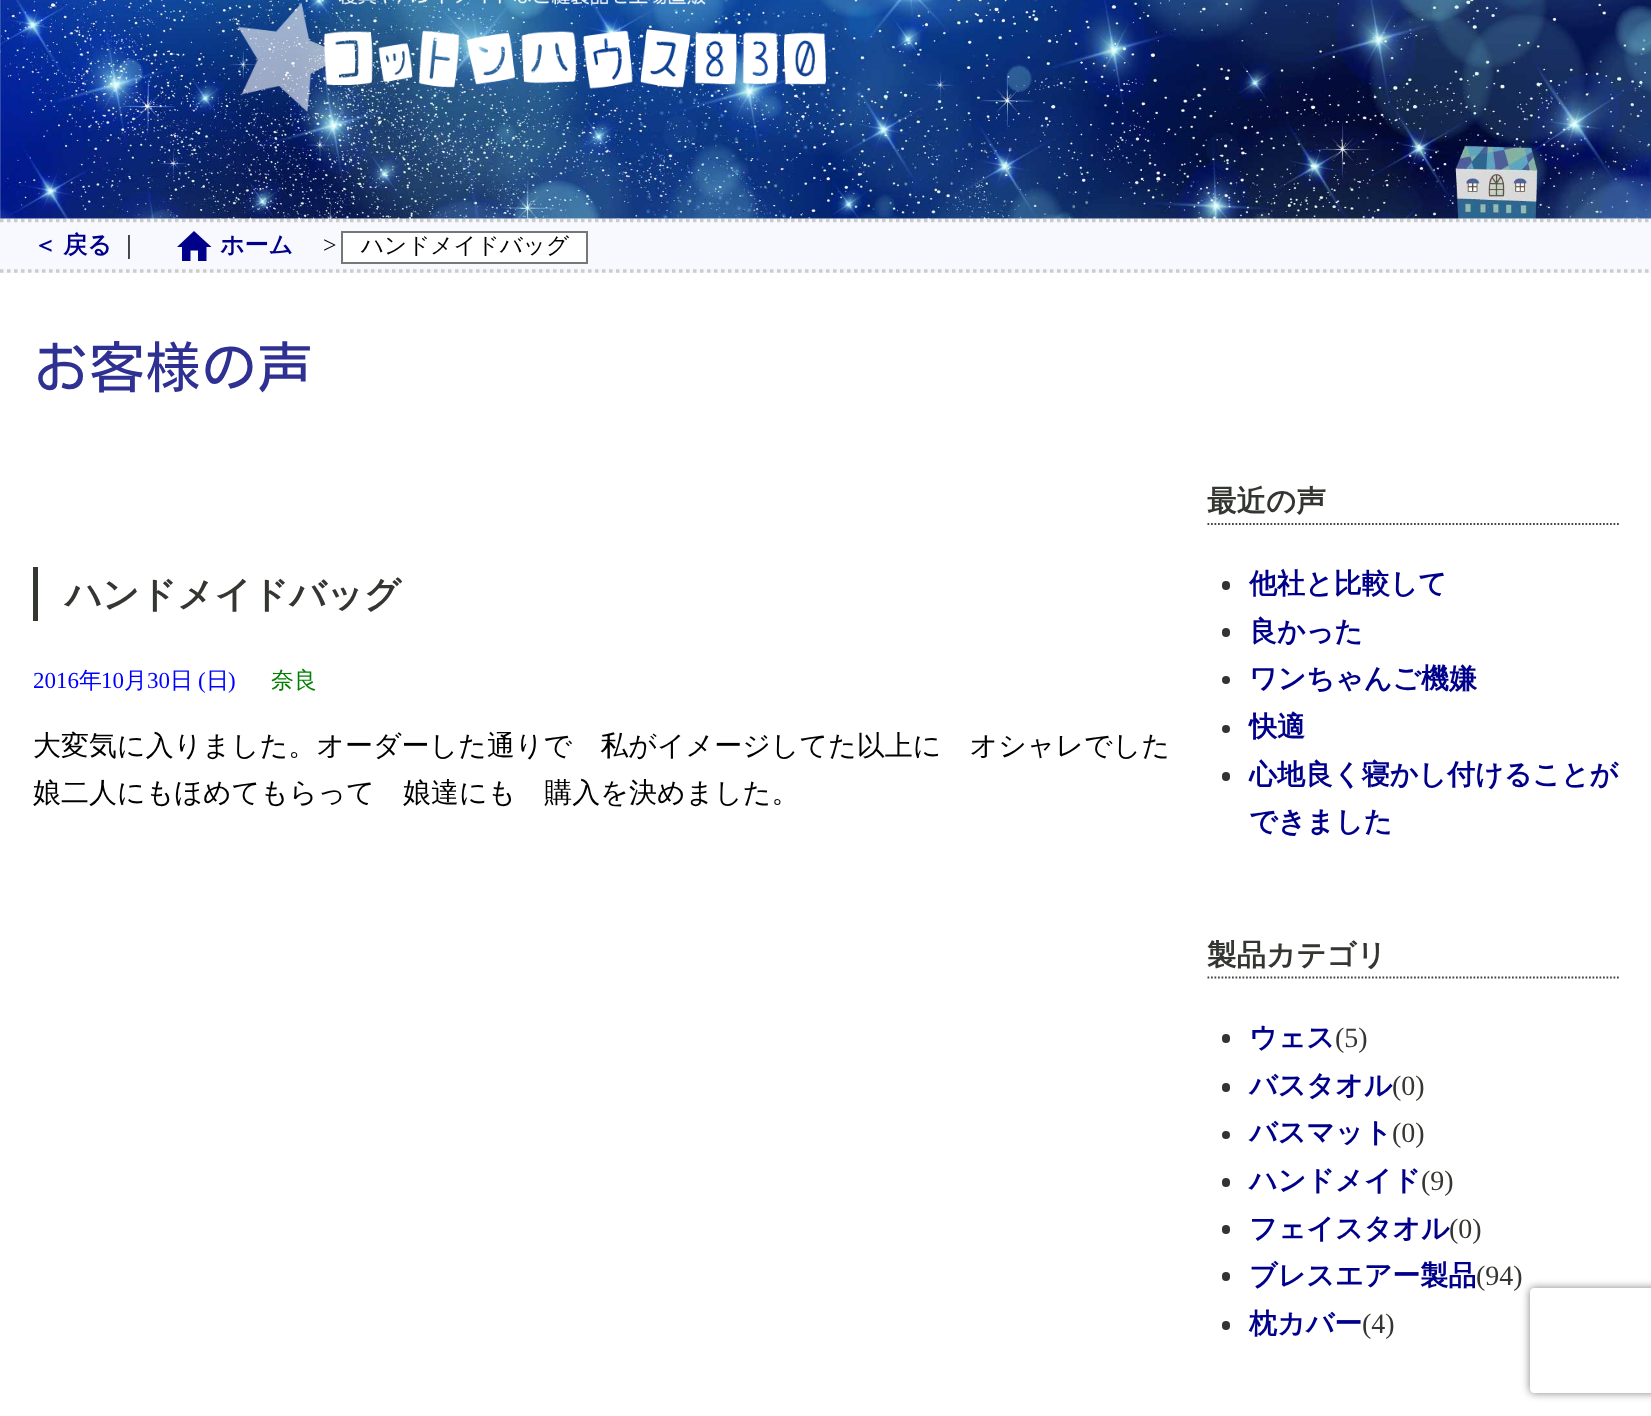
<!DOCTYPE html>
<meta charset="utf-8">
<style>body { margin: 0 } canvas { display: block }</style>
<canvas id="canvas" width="1651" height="1416"></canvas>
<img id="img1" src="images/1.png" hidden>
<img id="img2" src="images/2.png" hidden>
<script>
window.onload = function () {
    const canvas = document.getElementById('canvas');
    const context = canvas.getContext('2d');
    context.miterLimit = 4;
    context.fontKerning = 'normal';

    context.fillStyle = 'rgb(255, 255, 255)';
    context.fillRect(0, 0, 1651, 1416);
    context.fillStyle = 'rgb(248, 248, 255)';
    context.fillRect(0, 219, 1651, 54);
    context.beginPath();
    context.moveTo(0, 220.5);
    context.lineTo(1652, 220.5);
    context.strokeStyle = 'rgb(204, 204, 204)';
    context.lineWidth = 3.5;
    context.setLineDash([3.5, 3.5]);
    context.stroke();
    context.drawImage(document.getElementById('img1'), 0, 0, 1651, 219);
    context.drawImage(document.getElementById('img2'), 238, 0, 588, 112);
    context.beginPath();
    context.moveTo(0, 271);
    context.lineTo(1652, 271);
    context.stroke();
    context.fillStyle = 'rgb(0, 0, 139)';
    context.beginPath();
    context.moveTo(190.5, 261);
    context.lineTo(182, 261);
    context.lineTo(182, 247);
    context.lineTo(177, 247);
    context.lineTo(194, 231);
    context.lineTo(211.5, 247);
    context.lineTo(206.5, 247);
    context.lineTo(206.5, 261);
    context.lineTo(198, 261);
    context.lineTo(198, 250.5);
    context.lineTo(190.5, 250.5);
    context.closePath();
    context.fill();
    context.fillStyle = 'rgb(255, 255, 255)';
    context.beginPath();
    context.rect(342, 232, 245, 31);
    context.fill();
    context.strokeStyle = 'rgb(119, 119, 119)';
    context.lineWidth = 2;
    context.setLineDash([]);
    context.stroke();
    context.fillStyle = 'rgb(51, 54, 49)';
    context.fillRect(33, 567, 5, 54);
    context.beginPath();
    context.moveTo(1207.5, 524);
    context.lineTo(1619, 524);
    context.strokeStyle = 'rgb(68, 68, 68)';
    context.lineWidth = 1.8;
    context.setLineDash([1.75, 1.75]);
    context.stroke();
    context.fillStyle = 'rgb(51, 51, 51)';
    context.beginPath();
    context.roundRect(1222, 581, 8, 9, 4);
    context.fill();
    context.beginPath();
    context.roundRect(1222, 628, 8, 9, 4);
    context.fill();
    context.beginPath();
    context.arc(1226, 680, 4, 0, 2 * Math.PI);
    context.fill();
    context.beginPath();
    context.arc(1226, 729, 4, 0, 2 * Math.PI);
    context.fill();
    context.beginPath();
    context.roundRect(1222, 772, 8, 9, 4);
    context.fill();
    context.beginPath();
    context.moveTo(1207.5, 977.5);
    context.lineTo(1619, 977.5);
    context.stroke();
    context.beginPath();
    context.roundRect(1222, 1034, 8, 9, 4);
    context.fill();
    context.beginPath();
    context.roundRect(1222, 1083, 8, 9, 4);
    context.fill();
    context.beginPath();
    context.arc(1226, 1135, 4, 0, 2 * Math.PI);
    context.fill();
    context.beginPath();
    context.roundRect(1222, 1178, 8, 9, 4);
    context.fill();
    context.beginPath();
    context.roundRect(1222, 1225, 8, 9, 4);
    context.fill();
    context.beginPath();
    context.roundRect(1222, 1272, 8, 9, 4);
    context.fill();
    context.beginPath();
    context.roundRect(1222, 1321, 8, 9, 4);
    context.fill();
    context.save();
    context.beginPath();
    context.moveTo(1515, 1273);
    context.lineTo(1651, 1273);
    context.lineTo(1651, 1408);
    context.lineTo(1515, 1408);
    context.closePath();
    context.moveTo(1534, 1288);
    context.lineTo(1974, 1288);
    context.bezierCurveTo(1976, 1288, 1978, 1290, 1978, 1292);
    context.lineTo(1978, 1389);
    context.bezierCurveTo(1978, 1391, 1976, 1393, 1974, 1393);
    context.lineTo(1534, 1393);
    context.bezierCurveTo(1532, 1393, 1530, 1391, 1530, 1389);
    context.lineTo(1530, 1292);
    context.bezierCurveTo(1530, 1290, 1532, 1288, 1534, 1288);
    context.closePath();
    context.clip('evenodd');
    context.fillStyle = 'rgb(128, 128, 128)';
    context.filter = 'blur(4.5px)';
    context.beginPath();
    context.roundRect(1530, 1288, 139, 105, 4);
    context.fill();
    context.filter = 'none';
    context.restore();
    context.wordSpacing = '-1px';
    context.font = 'bold 24px WenQuanYi Zen Hei';
    context.fillStyle = 'rgb(0, 0, 139)';
    context.fillText('＜ 戻る', 33, 253);
    context.wordSpacing = '0px';
    context.font = '500 24px WenQuanYi Zen Hei';
    context.fillStyle = 'rgb(0, 0, 0)';
    context.fillText('｜', 117, 253);
    context.font = 'bold 24px WenQuanYi Zen Hei';
    context.fillStyle = 'rgb(0, 0, 139)';
    context.fillText('ホーム', 220, 253);
    context.font = '24px Liberation Serif';
    context.fillStyle = 'rgb(0, 0, 0)';
    context.fillText('>', 323, 253);
    context.font = '500 22.6px WenQuanYi Zen Hei';
    context.fillText('ハンドメイドバッグ', 361, 253);
    context.font = '56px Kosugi';
    context.fillStyle = 'rgb(46, 49, 146)';
    context.fillText('お客様の声', 33, 388);
    context.font = 'bold 36.5px WenQuanYi Zen Hei';
    context.fillStyle = 'rgb(51, 54, 49)';
    context.fillText('ハンドメイドバッグ', 65, 607);
    context.font = '23px Liberation Serif';
    context.fillStyle = 'rgb(0, 0, 255)';
    context.fillText('2016', 33, 688);
    context.font = '500 23px WenQuanYi Zen Hei';
    context.fillText('年', 79, 688);
    context.font = '23px Liberation Serif';
    context.fillText('10', 101, 688);
    context.font = '500 23px WenQuanYi Zen Hei';
    context.fillText('月', 124, 688);
    context.font = '23px Liberation Serif';
    context.fillText('30', 147, 688);
    context.font = '500 23px WenQuanYi Zen Hei';
    context.fillText('日', 170, 688);
    context.font = '23px Liberation Serif';
    context.fillText('(', 198, 688);
    context.font = '500 23px WenQuanYi Zen Hei';
    context.fillText('日', 206, 688);
    context.font = '23px Liberation Serif';
    context.fillText(')', 228, 688);
    context.font = '500 23px WenQuanYi Zen Hei';
    context.fillStyle = 'rgb(0, 128, 0)';
    context.fillText('奈良', 271, 688);
    context.font = '500 28px WenQuanYi Zen Hei';
    context.fillStyle = 'rgb(0, 0, 0)';
    context.fillText('大変気に入りました。オーダーした通りで　私がイメージしてた以上に　オシャレでした', 33, 755);
    context.fillText('娘二人にもほめてもらって　娘達にも　購入を決めました。', 33, 802);
    context.font = 'bold 29.5px WenQuanYi Zen Hei';
    context.fillStyle = 'rgb(51, 54, 49)';
    context.fillText('最近の声', 1207, 511);
    context.font = 'bold 28px WenQuanYi Zen Hei';
    context.fillStyle = 'rgb(0, 0, 139)';
    context.fillText('他社と比較して', 1249, 593);
    context.fillText('良かった', 1249, 641);
    context.fillText('ワンちゃんご機嫌', 1249, 688);
    context.fillText('快適', 1249, 736);
    context.fillText('心地良く寝かし付けることが', 1249, 784);
    context.fillText('できました', 1249, 831);
    context.font = 'bold 29.5px WenQuanYi Zen Hei';
    context.fillStyle = 'rgb(51, 54, 49)';
    context.fillText('製品カテゴリ', 1207, 965);
    context.font = 'bold 28px WenQuanYi Zen Hei';
    context.fillStyle = 'rgb(0, 0, 139)';
    context.fillText('ウェス', 1249, 1047);
    context.font = '28px Liberation Serif';
    context.fillStyle = 'rgb(51, 54, 49)';
    context.fillText('(5)', 1335, 1047);
    context.font = 'bold 28px WenQuanYi Zen Hei';
    context.fillStyle = 'rgb(0, 0, 139)';
    context.fillText('バスタオル', 1249, 1095);
    context.font = '28px Liberation Serif';
    context.fillStyle = 'rgb(51, 54, 49)';
    context.fillText('(0)', 1392, 1095);
    context.font = 'bold 28px WenQuanYi Zen Hei';
    context.fillStyle = 'rgb(0, 0, 139)';
    context.fillText('バスマット', 1249, 1142);
    context.font = '28px Liberation Serif';
    context.fillStyle = 'rgb(51, 54, 49)';
    context.fillText('(0)', 1392, 1142);
    context.font = 'bold 28px WenQuanYi Zen Hei';
    context.fillStyle = 'rgb(0, 0, 139)';
    context.fillText('ハンドメイド', 1249, 1190);
    context.font = '28px Liberation Serif';
    context.fillStyle = 'rgb(51, 54, 49)';
    context.fillText('(9)', 1421, 1190);
    context.font = 'bold 28px WenQuanYi Zen Hei';
    context.fillStyle = 'rgb(0, 0, 139)';
    context.fillText('フェイスタオル', 1249, 1238);
    context.font = '28px Liberation Serif';
    context.fillStyle = 'rgb(51, 54, 49)';
    context.fillText('(0)', 1449, 1238);
    context.font = 'bold 28px WenQuanYi Zen Hei';
    context.fillStyle = 'rgb(0, 0, 139)';
    context.fillText('ブレスエアー製品', 1249, 1285);
    context.font = '28px Liberation Serif';
    context.fillStyle = 'rgb(51, 54, 49)';
    context.fillText('(94)', 1476, 1285);
    context.font = 'bold 28px WenQuanYi Zen Hei';
    context.fillStyle = 'rgb(0, 0, 139)';
    context.fillText('枕カバー', 1249, 1333);
    context.font = '28px Liberation Serif';
    context.fillStyle = 'rgb(51, 54, 49)';
    context.fillText('(4)', 1362, 1333);
};
</script>
